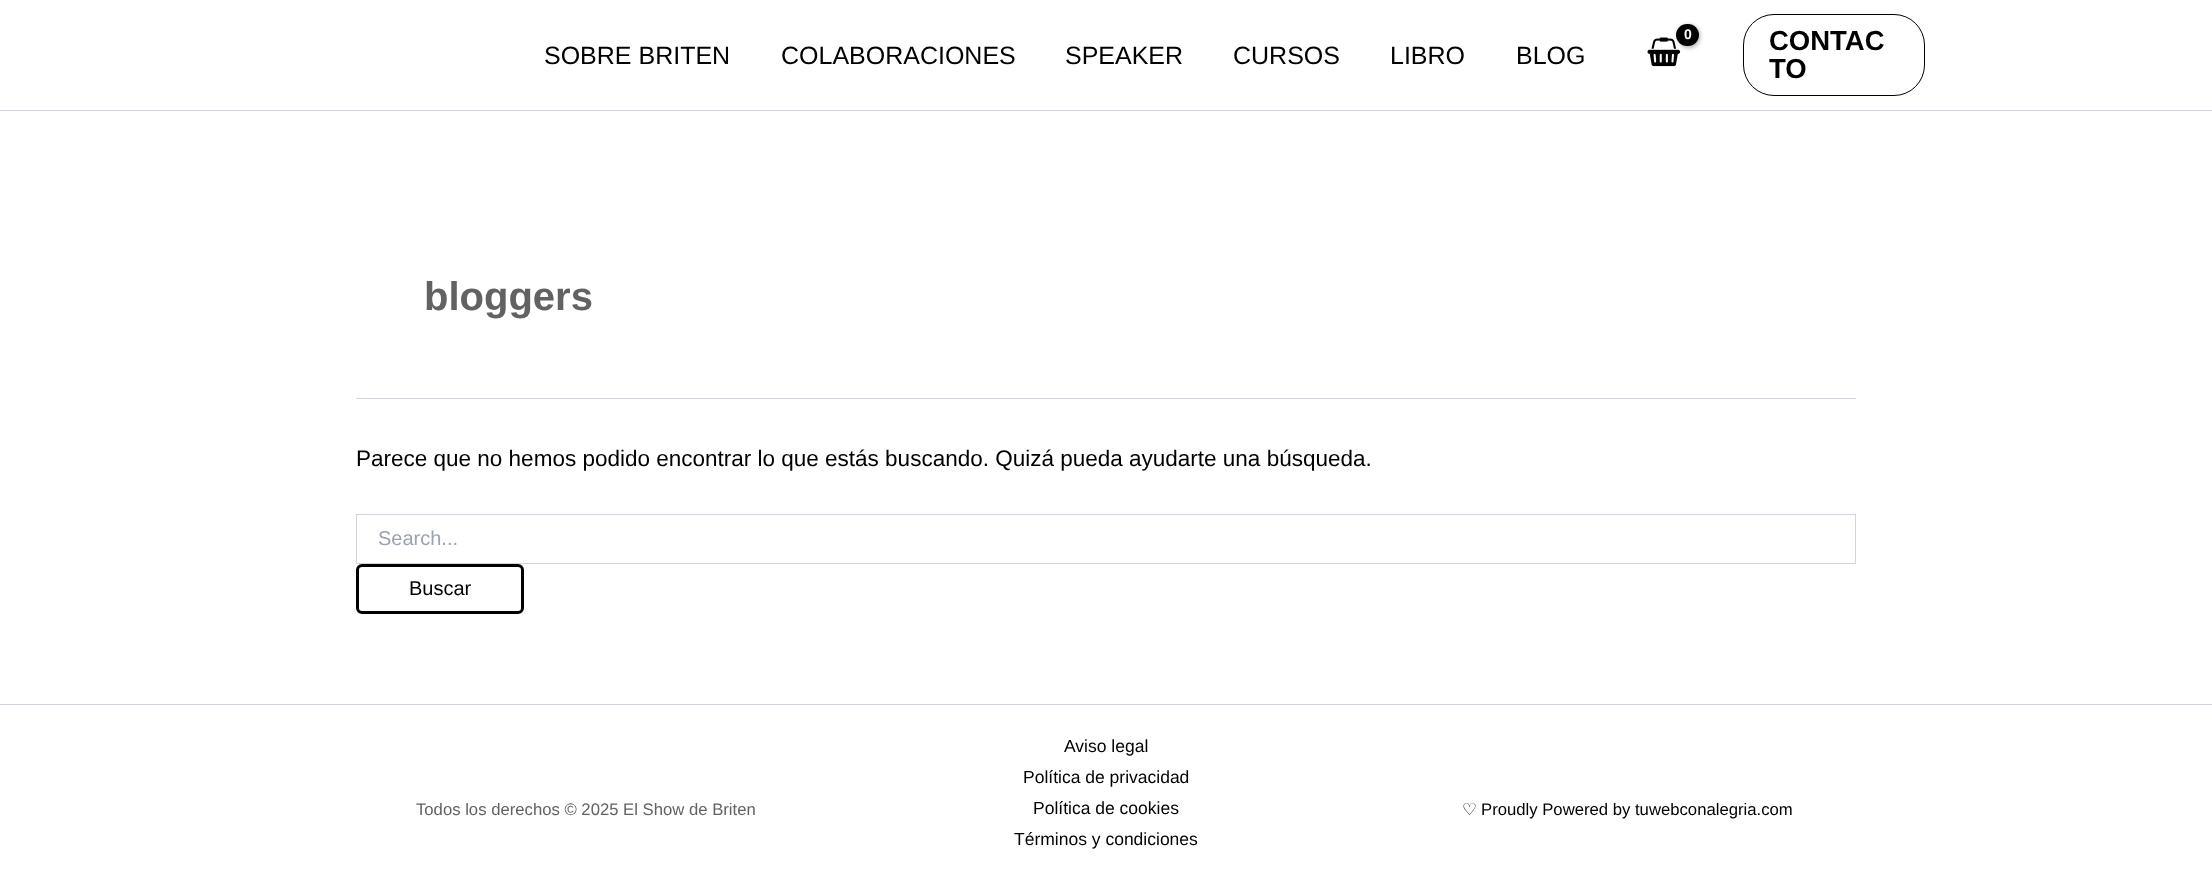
<!DOCTYPE html>
<meta charset="utf-8">
<style>body { margin: 0 } canvas { display: block }</style>
<canvas id="canvas" width="2212" height="871"></canvas>
<img id="img1" src="images/1.png" hidden>
<script>
window.onload = function () {
    const canvas = document.getElementById('canvas');
    const context = canvas.getContext('2d');
    context.miterLimit = 4;
    context.fontKerning = 'normal';

    context.fillStyle = 'rgb(255, 255, 255)';
    context.fillRect(0, 0, 2212, 871);
    context.fillStyle = 'rgb(209, 213, 219)';
    context.fillRect(0, 110, 2212, 1);
    context.drawImage(document.getElementById('img1'), 1647, 37, 34, 30);
    context.fillStyle = 'rgba(0, 0, 0, 0.3)';
    context.filter = 'blur(2px)';
    context.beginPath();
    context.roundRect(1678, 25, 22, 23, 11);
    context.fill();
    context.filter = 'none';
    context.fillStyle = 'rgb(0, 0, 0)';
    context.beginPath();
    context.roundRect(1676, 24, 23, 22, 11);
    context.fill();
    context.beginPath();
    context.roundRect(1743.5, 14.5, 181, 81, 30.5);
    context.strokeStyle = 'rgb(0, 0, 0)';
    context.stroke();
    context.fillStyle = 'rgb(209, 213, 219)';
    context.fillRect(356, 398, 1500, 1);
    context.strokeStyle = 'rgb(209, 213, 219)';
    context.strokeRect(356.5, 514.5, 1499, 49);
    context.beginPath();
    context.roundRect(357.5, 565.5, 165, 47, 4.5);
    context.strokeStyle = 'rgb(0, 0, 0)';
    context.lineWidth = 3;
    context.stroke();
    context.fillRect(0, 704, 2212, 1);
    context.letterSpacing = '-1px';
    context.font = 'bold 14px Liberation Sans';
    context.fillStyle = 'rgb(255, 255, 255)';
    context.fillText('0', 1684, 39);
    context.letterSpacing = '0px';
    context.font = '25px Liberation Sans';
    context.fillStyle = 'rgb(0, 0, 0)';
    context.fillText('SOBRE BRITEN', 544, 64);
    context.fillText('COLABORACIONES', 781, 64);
    context.fillText('SPEAKER', 1065, 64);
    context.fillText('CURSOS', 1233, 64);
    context.fillText('LIBRO', 1390, 64);
    context.fillText('BLOG', 1516, 64);
    context.font = 'bold 27.5px Liberation Sans';
    context.fillText('CONTAC', 1769, 50);
    context.fillText('TO', 1769, 78);
    context.font = 'bold 40px Liberation Sans';
    context.fillStyle = 'rgb(98, 98, 98)';
    context.fillText('bloggers', 424, 310);
    context.font = '22.5px Liberation Sans';
    context.fillStyle = 'rgb(0, 0, 0)';
    context.fillText('Parece que no hemos podido encontrar lo que estás buscando. Quizá pueda ayudarte una búsqueda.', 356, 466);
    context.font = '20px Liberation Sans';
    context.fillStyle = 'rgb(156, 163, 175)';
    context.fillText('Search...', 378, 545);
    context.fillStyle = 'rgb(0, 0, 0)';
    context.fillText('Buscar', 409, 595);
    context.font = '16.7px Liberation Sans';
    context.fillStyle = 'rgb(98, 98, 98)';
    context.fillText('Todos los derechos © 2025 El Show de Briten', 416, 815);
    context.font = '17.5px Liberation Sans';
    context.fillStyle = 'rgb(0, 0, 0)';
    context.fillText('Aviso legal', 1064, 752);
    context.fillText('Política de privacidad', 1023, 783);
    context.fillText('Política de cookies', 1033, 814);
    context.fillText('Términos y condiciones', 1014, 845);
    context.font = '16.7px DejaVu Sans';
    context.fillText('♡', 1462, 815);
    context.font = '16.7px Liberation Sans';
    context.fillText('Proudly Powered by tuwebconalegria.com', 1481, 815);
};
</script>
